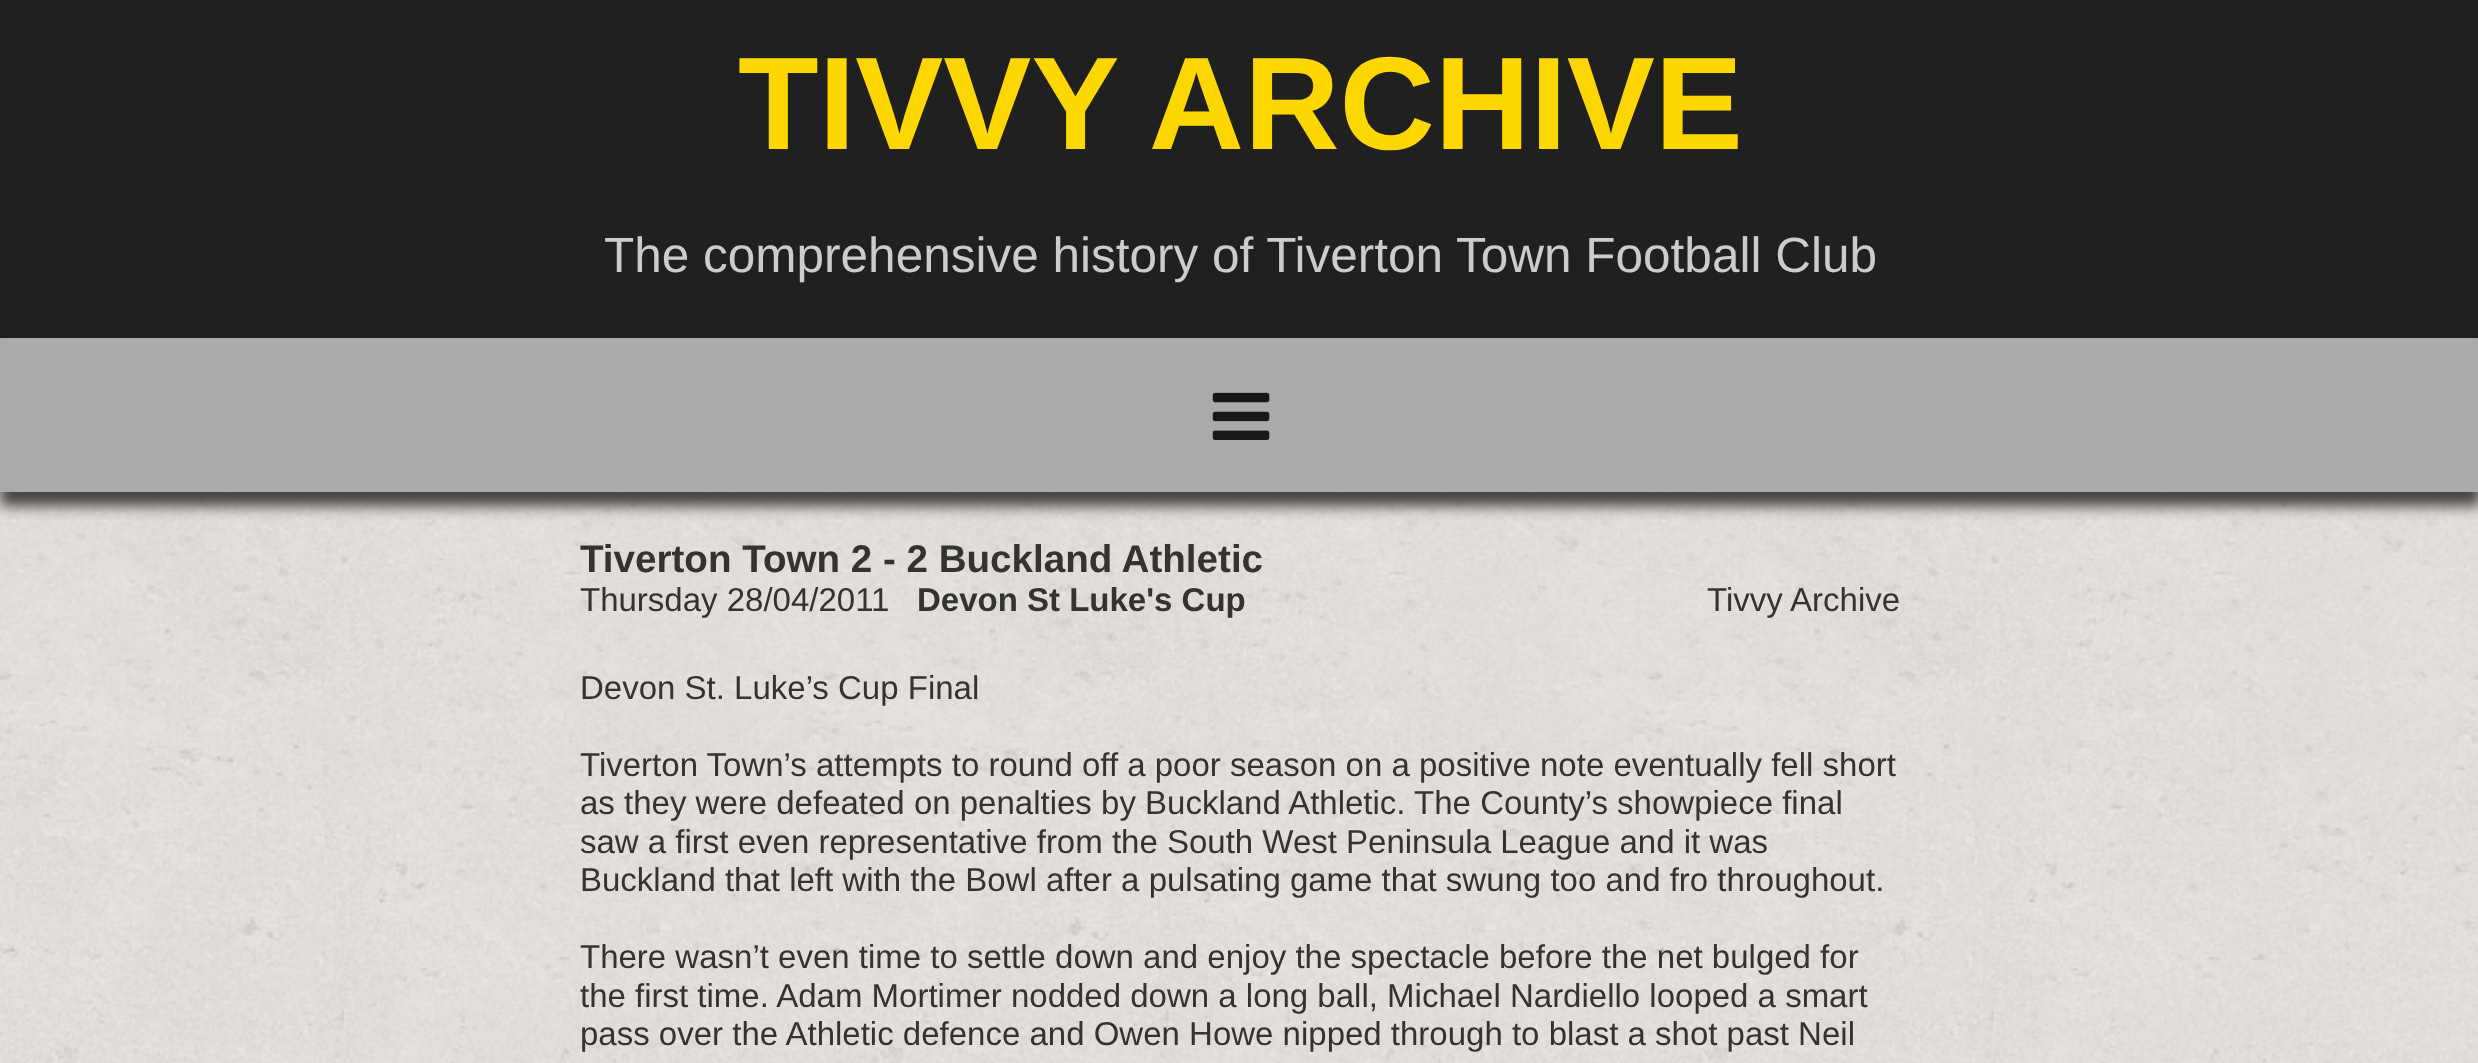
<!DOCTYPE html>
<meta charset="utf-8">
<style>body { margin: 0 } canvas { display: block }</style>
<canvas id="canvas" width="2478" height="1063"></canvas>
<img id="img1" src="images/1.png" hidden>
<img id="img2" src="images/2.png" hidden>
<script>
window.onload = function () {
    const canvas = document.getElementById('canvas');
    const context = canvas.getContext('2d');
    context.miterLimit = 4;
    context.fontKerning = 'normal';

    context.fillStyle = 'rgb(255, 255, 255)';
    context.fillRect(0, 0, 2478, 1063);
    context.drawImage(document.getElementById('img1'), 0, 492, 2478, 571);
    context.fillStyle = 'rgb(32, 32, 32)';
    context.fillRect(0, 0, 2478, 338);
    context.fillStyle = 'rgb(68, 68, 68)';
    context.filter = 'blur(7px)';
    context.beginPath();
    context.rect(0, 352, 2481, 154);
    context.fill();
    context.filter = 'none';
    context.fillStyle = 'rgb(170, 170, 170)';
    context.fillRect(0, 338, 2478, 154);
    context.drawImage(document.getElementById('img2'), 1212, 392, 58, 48);
    context.font = 'bold 132px Liberation Sans';
    context.fillStyle = 'rgb(255, 215, 0)';
    context.fillText('TIVVY ARCHIVE', 738, 149);
    context.font = '49.5px Liberation Sans';
    context.fillStyle = 'rgb(204, 204, 204)';
    context.fillText('The comprehensive history of Tiverton Town Football Club', 604, 272);
    context.font = 'bold 38.6px Liberation Sans';
    context.fillStyle = 'rgb(51, 51, 51)';
    context.fillText('Tiverton Town 2 - 2 Buckland Athletic', 580, 572);
    context.font = '33px Liberation Sans';
    context.fillText('Thursday 28/04/2011', 580, 611);
    context.font = 'bold 33px Liberation Sans';
    context.fillText('Devon St Luke\'s Cup', 917, 611);
    context.font = '33px Liberation Sans';
    context.fillText('Tivvy Archive', 1707, 611);
    context.fillText('Devon St. Luke’s Cup Final', 580, 699);
    context.fillText('Tiverton Town’s attempts to round off a poor season on a positive note eventually fell short', 580, 776);
    context.fillText('as they were defeated on penalties by Buckland Athletic. The County’s showpiece final', 580, 814);
    context.fillText('saw a first even representative from the South West Peninsula League and it was', 580, 853);
    context.fillText('Buckland that left with the Bowl after a pulsating game that swung too and fro throughout.', 580, 891);
    context.fillText('There wasn’t even time to settle down and enjoy the spectacle before the net bulged for', 580, 968);
    context.fillText('the first time. Adam Mortimer nodded down a long ball, Michael Nardiello looped a smart', 580, 1007);
    context.fillText('pass over the Athletic defence and Owen Howe nipped through to blast a shot past Neil', 580, 1045);
};
</script>
